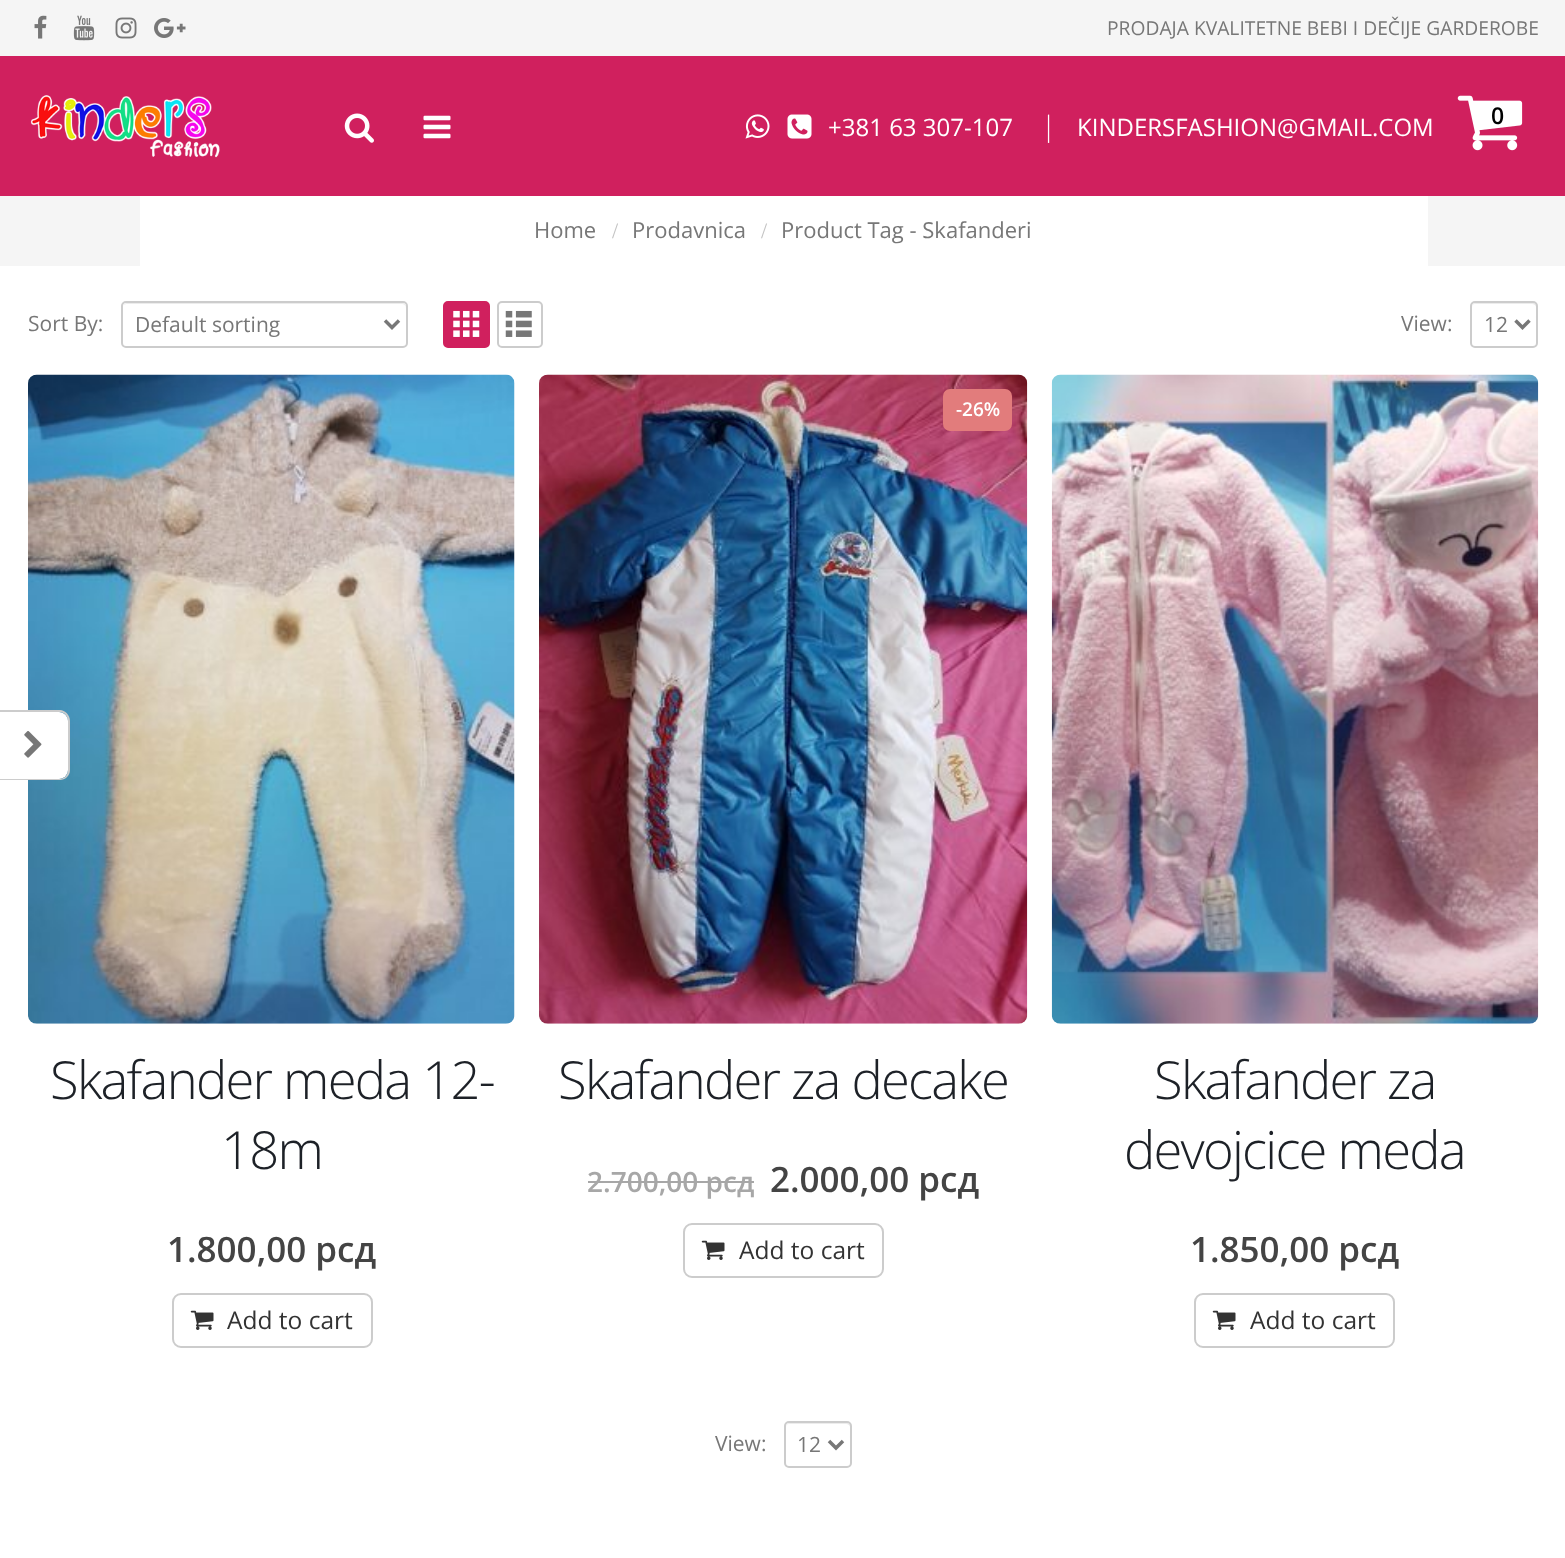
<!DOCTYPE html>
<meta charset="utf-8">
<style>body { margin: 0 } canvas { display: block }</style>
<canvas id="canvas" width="1565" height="1558"></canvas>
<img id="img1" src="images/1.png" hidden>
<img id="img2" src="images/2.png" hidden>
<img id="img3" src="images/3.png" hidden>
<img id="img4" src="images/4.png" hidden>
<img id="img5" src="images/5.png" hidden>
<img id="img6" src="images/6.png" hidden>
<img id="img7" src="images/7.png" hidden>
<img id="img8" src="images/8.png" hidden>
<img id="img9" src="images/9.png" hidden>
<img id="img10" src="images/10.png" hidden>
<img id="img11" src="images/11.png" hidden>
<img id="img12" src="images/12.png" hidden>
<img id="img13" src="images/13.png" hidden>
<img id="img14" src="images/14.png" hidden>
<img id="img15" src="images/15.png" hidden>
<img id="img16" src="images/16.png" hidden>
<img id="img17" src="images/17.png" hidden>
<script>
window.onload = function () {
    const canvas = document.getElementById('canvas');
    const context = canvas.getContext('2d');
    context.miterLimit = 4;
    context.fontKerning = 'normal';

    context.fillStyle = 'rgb(245, 245, 245)';
    context.fillRect(0, 0, 1565, 1558);
    context.drawImage(document.getElementById('img1'), 34, 15, 13, 24);
    context.drawImage(document.getElementById('img2'), 73, 15, 22, 26);
    context.drawImage(document.getElementById('img3'), 115, 17, 22, 22);
    context.drawImage(document.getElementById('img4'), 154, 18, 32, 20);
    context.fillStyle = 'rgb(208, 32, 94)';
    context.fillRect(0, 56, 1565, 140);
    context.drawImage(document.getElementById('img5'), 30, 95, 190, 63);
    context.drawImage(document.getElementById('img6'), 344, 113, 30, 30);
    context.drawImage(document.getElementById('img7'), 423, 115, 28, 24);
    context.drawImage(document.getElementById('img8'), 745, 114, 25, 25);
    context.drawImage(document.getElementById('img9'), 787, 114, 25, 25);
    context.drawImage(document.getElementById('img10'), 1457, 95, 66, 56);
    context.fillStyle = 'rgb(255, 255, 255)';
    context.fillRect(140, 196, 1288, 70);
    context.fillRect(0, 266, 1565, 1292);
    context.fillStyle = 'rgb(236, 236, 236)';
    context.beginPath();
    context.moveTo(126, 304);
    context.lineTo(402, 304);
    context.bezierCurveTo(404, 304, 406, 306, 406, 308);
    context.lineTo(406, 307);
    context.bezierCurveTo(406, 305, 404, 303, 402, 303);
    context.lineTo(127, 303);
    context.bezierCurveTo(126, 303, 124, 304, 124, 305);
    context.closePath();
    context.fill();
    context.beginPath();
    context.roundRect(122, 302, 285, 45, 4);
    context.strokeStyle = 'rgb(204, 204, 204)';
    context.lineWidth = 2;
    context.stroke();
    context.beginPath();
    context.moveTo(385, 320.5);
    context.lineTo(392, 327.5);
    context.lineTo(399, 320.5);
    context.strokeStyle = 'rgb(119, 119, 119)';
    context.lineWidth = 3.5;
    context.stroke();
    context.fillStyle = 'rgb(208, 32, 94)';
    context.beginPath();
    context.roundRect(444, 302, 45, 45, 4);
    context.fill();
    context.strokeStyle = 'rgb(208, 32, 94)';
    context.lineWidth = 2;
    context.stroke();
    context.drawImage(document.getElementById('img11'), 453, 310, 27, 27);
    context.beginPath();
    context.roundRect(498, 302, 44, 45, 4);
    context.strokeStyle = 'rgb(204, 204, 204)';
    context.stroke();
    context.drawImage(document.getElementById('img12'), 505, 310, 27, 27);
    context.fillStyle = 'rgb(236, 236, 236)';
    context.beginPath();
    context.moveTo(1475, 304);
    context.lineTo(1523, 304);
    context.bezierCurveTo(1539, 304, 1536, 303, 1536, 320);
    context.lineTo(1536, 346);
    context.bezierCurveTo(1537, 345, 1537, 344, 1537, 343);
    context.lineTo(1537, 307);
    context.bezierCurveTo(1537, 305, 1535, 303, 1533, 303);
    context.lineTo(1476, 303);
    context.bezierCurveTo(1474, 303, 1472, 305, 1472, 307);
    context.lineTo(1472, 308);
    context.bezierCurveTo(1472, 306, 1473, 304, 1475, 304);
    context.closePath();
    context.fill();
    context.beginPath();
    context.roundRect(1471, 302, 66, 45, 4);
    context.stroke();
    context.beginPath();
    context.moveTo(1515.5, 320.5);
    context.lineTo(1522.5, 327.5);
    context.lineTo(1529.5, 320.5);
    context.strokeStyle = 'rgb(119, 119, 119)';
    context.lineWidth = 3.5;
    context.stroke();
    context.drawImage(document.getElementById('img13'), 28, 374, 487, 650);
    context.beginPath();
    context.roundRect(173, 1294, 199, 53, 8);
    context.strokeStyle = 'rgb(204, 204, 204)';
    context.lineWidth = 2;
    context.stroke();
    context.drawImage(document.getElementById('img14'), 190, 1310, 24, 20);
    context.drawImage(document.getElementById('img15'), 539, 374, 489, 650);
    context.fillStyle = 'rgb(226, 124, 124)';
    context.beginPath();
    context.roundRect(943, 389, 69, 42, 7);
    context.fill();
    context.fillStyle = 'rgb(167, 167, 167)';
    context.fillRect(588, 1181, 166, 2);
    context.beginPath();
    context.roundRect(684, 1224, 199, 53, 8);
    context.stroke();
    context.drawImage(document.getElementById('img14'), 701, 1240, 24, 20);
    context.drawImage(document.getElementById('img16'), 1051, 374, 488, 650);
    context.beginPath();
    context.roundRect(1195, 1294, 199, 53, 8);
    context.stroke();
    context.drawImage(document.getElementById('img14'), 1212, 1310, 24, 20);
    context.fillStyle = 'rgb(236, 236, 236)';
    context.beginPath();
    context.moveTo(789, 1424);
    context.lineTo(837, 1424);
    context.bezierCurveTo(853, 1424, 850, 1423, 850, 1440);
    context.lineTo(850, 1466);
    context.bezierCurveTo(851, 1465, 851, 1464, 851, 1463);
    context.lineTo(851, 1427);
    context.bezierCurveTo(851, 1425, 849, 1423, 847, 1423);
    context.lineTo(790, 1423);
    context.bezierCurveTo(788, 1423, 786, 1425, 786, 1427);
    context.lineTo(786, 1428);
    context.bezierCurveTo(786, 1426, 787, 1424, 789, 1424);
    context.closePath();
    context.fill();
    context.beginPath();
    context.roundRect(785, 1422, 66, 45, 4);
    context.stroke();
    context.beginPath();
    context.moveTo(829, 1441);
    context.lineTo(836, 1448);
    context.lineTo(843, 1441);
    context.strokeStyle = 'rgb(119, 119, 119)';
    context.lineWidth = 3.5;
    context.stroke();
    context.fillStyle = 'rgb(255, 255, 255)';
    context.beginPath();
    context.roundRect(0, 712, 68, 67, [0, 9, 9, 0]);
    context.fill();
    context.fillStyle = 'rgb(204, 204, 204)';
    context.beginPath();
    context.moveTo(0, 710);
    context.lineTo(60, 710);
    context.bezierCurveTo(65, 710, 70, 715, 70, 721);
    context.lineTo(70, 770);
    context.bezierCurveTo(70, 776, 65, 780, 60, 780);
    context.lineTo(0, 780);
    context.closePath();
    context.moveTo(0, 712);
    context.lineTo(60, 712);
    context.bezierCurveTo(64, 712, 68, 716, 68, 721);
    context.lineTo(68, 770);
    context.bezierCurveTo(68, 775, 64, 779, 60, 779);
    context.lineTo(0, 779);
    context.closePath();
    context.fill('evenodd');
    context.drawImage(document.getElementById('img17'), 24, 731, 18, 27);
    context.font = '19.25px Open Sans';
    context.fillStyle = 'rgb(119, 119, 119)';
    context.fillText('PRODAJA KVALITETNE BEBI I DEČIJE GARDEROBE', 1107, 35);
    context.font = '24px Open Sans';
    context.fillStyle = 'rgb(255, 255, 255)';
    context.fillText('+381 63 307-107', 828, 136);
    context.font = '300 28px Open Sans';
    context.fillText('|', 1041, 136);
    context.font = '24px Open Sans';
    context.fillText('KINDERSFASHION@GMAIL.COM', 1077, 136);
    context.font = '600 23px Open Sans';
    context.fillStyle = 'rgb(0, 0, 0)';
    context.fillText('0', 1491, 124);
    context.font = '22px Open Sans';
    context.fillStyle = 'rgb(119, 119, 119)';
    context.fillText('Home', 534, 238);
    context.font = '22px Liberation Serif';
    context.fillStyle = 'rgb(195, 195, 195)';
    context.fillText('/', 612, 238);
    context.font = '22px Open Sans';
    context.fillStyle = 'rgb(119, 119, 119)';
    context.fillText('Prodavnica', 632, 238);
    context.font = '22px Liberation Serif';
    context.fillStyle = 'rgb(195, 195, 195)';
    context.fillText('/', 761, 238);
    context.font = '22px Open Sans';
    context.fillStyle = 'rgb(119, 119, 119)';
    context.fillText('Product Tag - Skafanderi', 781, 238);
    context.font = '21px Open Sans';
    context.fillText('Sort By:', 28, 331);
    context.fillText('Default sorting', 135, 332);
    context.fillText('View:', 1401, 331);
    context.fillText('12', 1484, 332);
    context.letterSpacing = '-1.75px';
    context.font = '300 52.5px Open Sans';
    context.fillStyle = 'rgb(29, 33, 39)';
    context.fillText('Skafander meda 12-', 50, 1099);
    context.fillText('18m', 221, 1169);
    context.letterSpacing = '0px';
    context.font = '600 35px Open Sans';
    context.fillStyle = 'rgb(68, 68, 68)';
    context.fillText('1.800,00 рсд', 167, 1262);
    context.font = '24.5px Open Sans';
    context.fillStyle = 'rgb(51, 51, 51)';
    context.fillText('Add to cart', 227, 1329);
    context.font = '600 19px Open Sans';
    context.fillStyle = 'rgb(255, 255, 255)';
    context.fillText('-26%', 956, 416);
    context.letterSpacing = '-1.75px';
    context.font = '300 52.5px Open Sans';
    context.fillStyle = 'rgb(29, 33, 39)';
    context.fillText('Skafander za decake', 558, 1099);
    context.letterSpacing = '0px';
    context.font = '600 28px Open Sans';
    context.fillStyle = 'rgb(167, 167, 167)';
    context.fillText('2.700,00 рсд', 587, 1192);
    context.font = '600 35px Open Sans';
    context.fillStyle = 'rgb(68, 68, 68)';
    context.fillText('2.000,00 рсд', 770, 1192);
    context.font = '24.5px Open Sans';
    context.fillStyle = 'rgb(51, 51, 51)';
    context.fillText('Add to cart', 739, 1259);
    context.letterSpacing = '-1.75px';
    context.font = '300 52.5px Open Sans';
    context.fillStyle = 'rgb(29, 33, 39)';
    context.fillText('Skafander za', 1154, 1099);
    context.fillText('devojcice meda', 1124, 1169);
    context.letterSpacing = '0px';
    context.font = '600 35px Open Sans';
    context.fillStyle = 'rgb(68, 68, 68)';
    context.fillText('1.850,00 рсд', 1190, 1262);
    context.font = '24.5px Open Sans';
    context.fillStyle = 'rgb(51, 51, 51)';
    context.fillText('Add to cart', 1250, 1329);
    context.font = '21px Open Sans';
    context.fillStyle = 'rgb(119, 119, 119)';
    context.fillText('View:', 715, 1451);
    context.fillText('12', 797, 1452);
};
</script>
